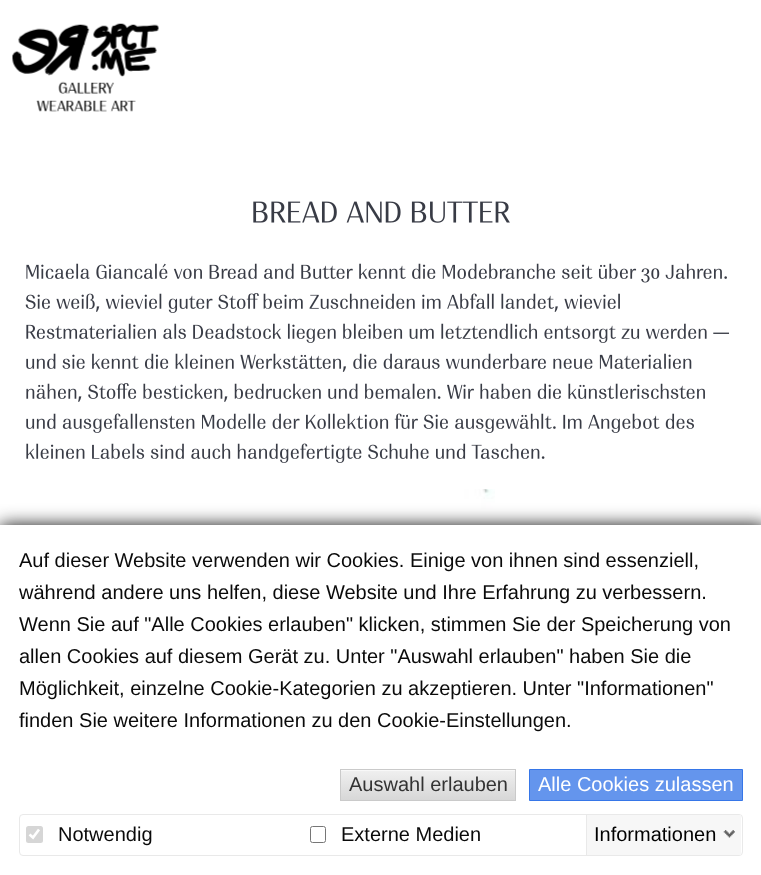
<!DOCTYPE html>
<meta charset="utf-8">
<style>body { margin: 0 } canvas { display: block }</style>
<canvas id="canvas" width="761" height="875"></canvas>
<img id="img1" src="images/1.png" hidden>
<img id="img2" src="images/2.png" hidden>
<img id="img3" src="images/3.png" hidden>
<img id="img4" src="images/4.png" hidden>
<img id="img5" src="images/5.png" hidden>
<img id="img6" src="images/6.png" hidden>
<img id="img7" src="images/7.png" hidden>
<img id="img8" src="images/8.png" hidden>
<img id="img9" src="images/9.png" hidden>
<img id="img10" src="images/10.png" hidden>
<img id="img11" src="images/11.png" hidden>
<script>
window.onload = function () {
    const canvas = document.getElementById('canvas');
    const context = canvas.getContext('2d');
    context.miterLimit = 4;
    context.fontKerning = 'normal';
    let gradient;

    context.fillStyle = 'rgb(255, 255, 255)';
    context.fillRect(0, 0, 761, 875);
    context.drawImage(document.getElementById('img1'), 12, 23, 147, 89);
    context.drawImage(document.getElementById('img2'), 253, 201, 257, 22);
    context.drawImage(document.getElementById('img3'), 26, 263, 701, 20);
    context.drawImage(document.getElementById('img4'), 25, 293, 595, 20);
    context.drawImage(document.getElementById('img5'), 26, 323, 704, 20);
    context.drawImage(document.getElementById('img6'), 26, 353, 666, 19);
    context.drawImage(document.getElementById('img7'), 26, 383, 679, 19);
    context.drawImage(document.getElementById('img8'), 26, 413, 668, 20);
    context.drawImage(document.getElementById('img9'), 26, 443, 519, 20);
    context.drawImage(document.getElementById('img10'), 25, 489, 470, 36);
    context.fillStyle = 'rgb(18, 18, 18)';
    context.filter = 'blur(9px)';
    context.beginPath();
    context.rect(0, 525, 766, 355);
    context.fill();
    context.filter = 'none';
    context.fillStyle = 'rgb(255, 255, 255)';
    context.fillRect(0, 525, 761, 350);
    gradient = context.createLinearGradient(428, 770, 428, 800);
    gradient.addColorStop(0, 'rgb(240, 240, 240)');
    gradient.addColorStop(1, 'rgb(215, 215, 215)');
    context.fillStyle = gradient;
    context.fillRect(341, 771, 174, 29);
    context.fillStyle = 'rgb(248, 248, 248)';
    context.fillRect(341, 770, 174, 1);
    context.strokeStyle = 'rgb(202, 202, 202)';
    context.strokeRect(340.5, 769.5, 175, 31);
    context.fillStyle = 'rgb(100, 149, 237)';
    context.beginPath();
    context.rect(529.5, 769.5, 213, 31);
    context.fill();
    context.strokeStyle = 'rgb(54, 118, 232)';
    context.stroke();
    context.beginPath();
    context.roundRect(19.5, 814.5, 723, 41, 3.5);
    context.strokeStyle = 'rgb(233, 233, 233)';
    context.stroke();
    context.fillStyle = 'rgb(214, 214, 214)';
    context.beginPath();
    context.roundRect(26, 826, 17, 17, 2.5);
    context.fill();
    context.beginPath();
    context.moveTo(29.5, 834.5);
    context.lineTo(33, 837.5);
    context.lineTo(39, 829.5);
    context.strokeStyle = 'rgb(255, 255, 255)';
    context.lineWidth = 2.6;
    context.stroke();
    context.beginPath();
    context.roundRect(310.5, 826.5, 15, 16, 2);
    context.strokeStyle = 'rgb(118, 118, 118)';
    context.lineWidth = 1;
    context.stroke();
    context.fillStyle = 'rgb(247, 247, 247)';
    context.fillRect(587, 815, 154, 40);
    context.fillStyle = 'rgb(233, 233, 233)';
    context.fillRect(586, 815, 1, 40);
    context.drawImage(document.getElementById('img11'), 723, 830, 12, 8);
    context.font = '20px Liberation Sans';
    context.fillStyle = 'rgb(10, 10, 10)';
    context.fillText('Auf dieser Website verwenden wir Cookies. Einige von ihnen sind essenziell,', 19, 567);
    context.fillText('während andere uns helfen, diese Website und Ihre Erfahrung zu verbessern.', 19, 599);
    context.fillText('Wenn Sie auf "Alle Cookies erlauben" klicken, stimmen Sie der Speicherung von', 19, 631);
    context.fillText('allen Cookies auf diesem Gerät zu. Unter "Auswahl erlauben" haben Sie die', 19, 663);
    context.fillText('Möglichkeit, einzelne Cookie-Kategorien zu akzeptieren. Unter "Informationen"', 19, 695);
    context.fillText('finden Sie weitere Informationen zu den Cookie-Einstellungen.', 19, 727);
    context.fillStyle = 'rgb(51, 51, 51)';
    context.fillText('Auswahl erlauben', 349, 791);
    context.fillStyle = 'rgb(255, 255, 255)';
    context.fillText('Alle Cookies zulassen', 538, 791);
    context.fillStyle = 'rgb(10, 10, 10)';
    context.fillText('Notwendig', 58, 841);
    context.fillText('Externe Medien', 341, 841);
    context.fillStyle = 'rgb(0, 0, 0)';
    context.fillText('Informationen', 594, 841);
};
</script>
